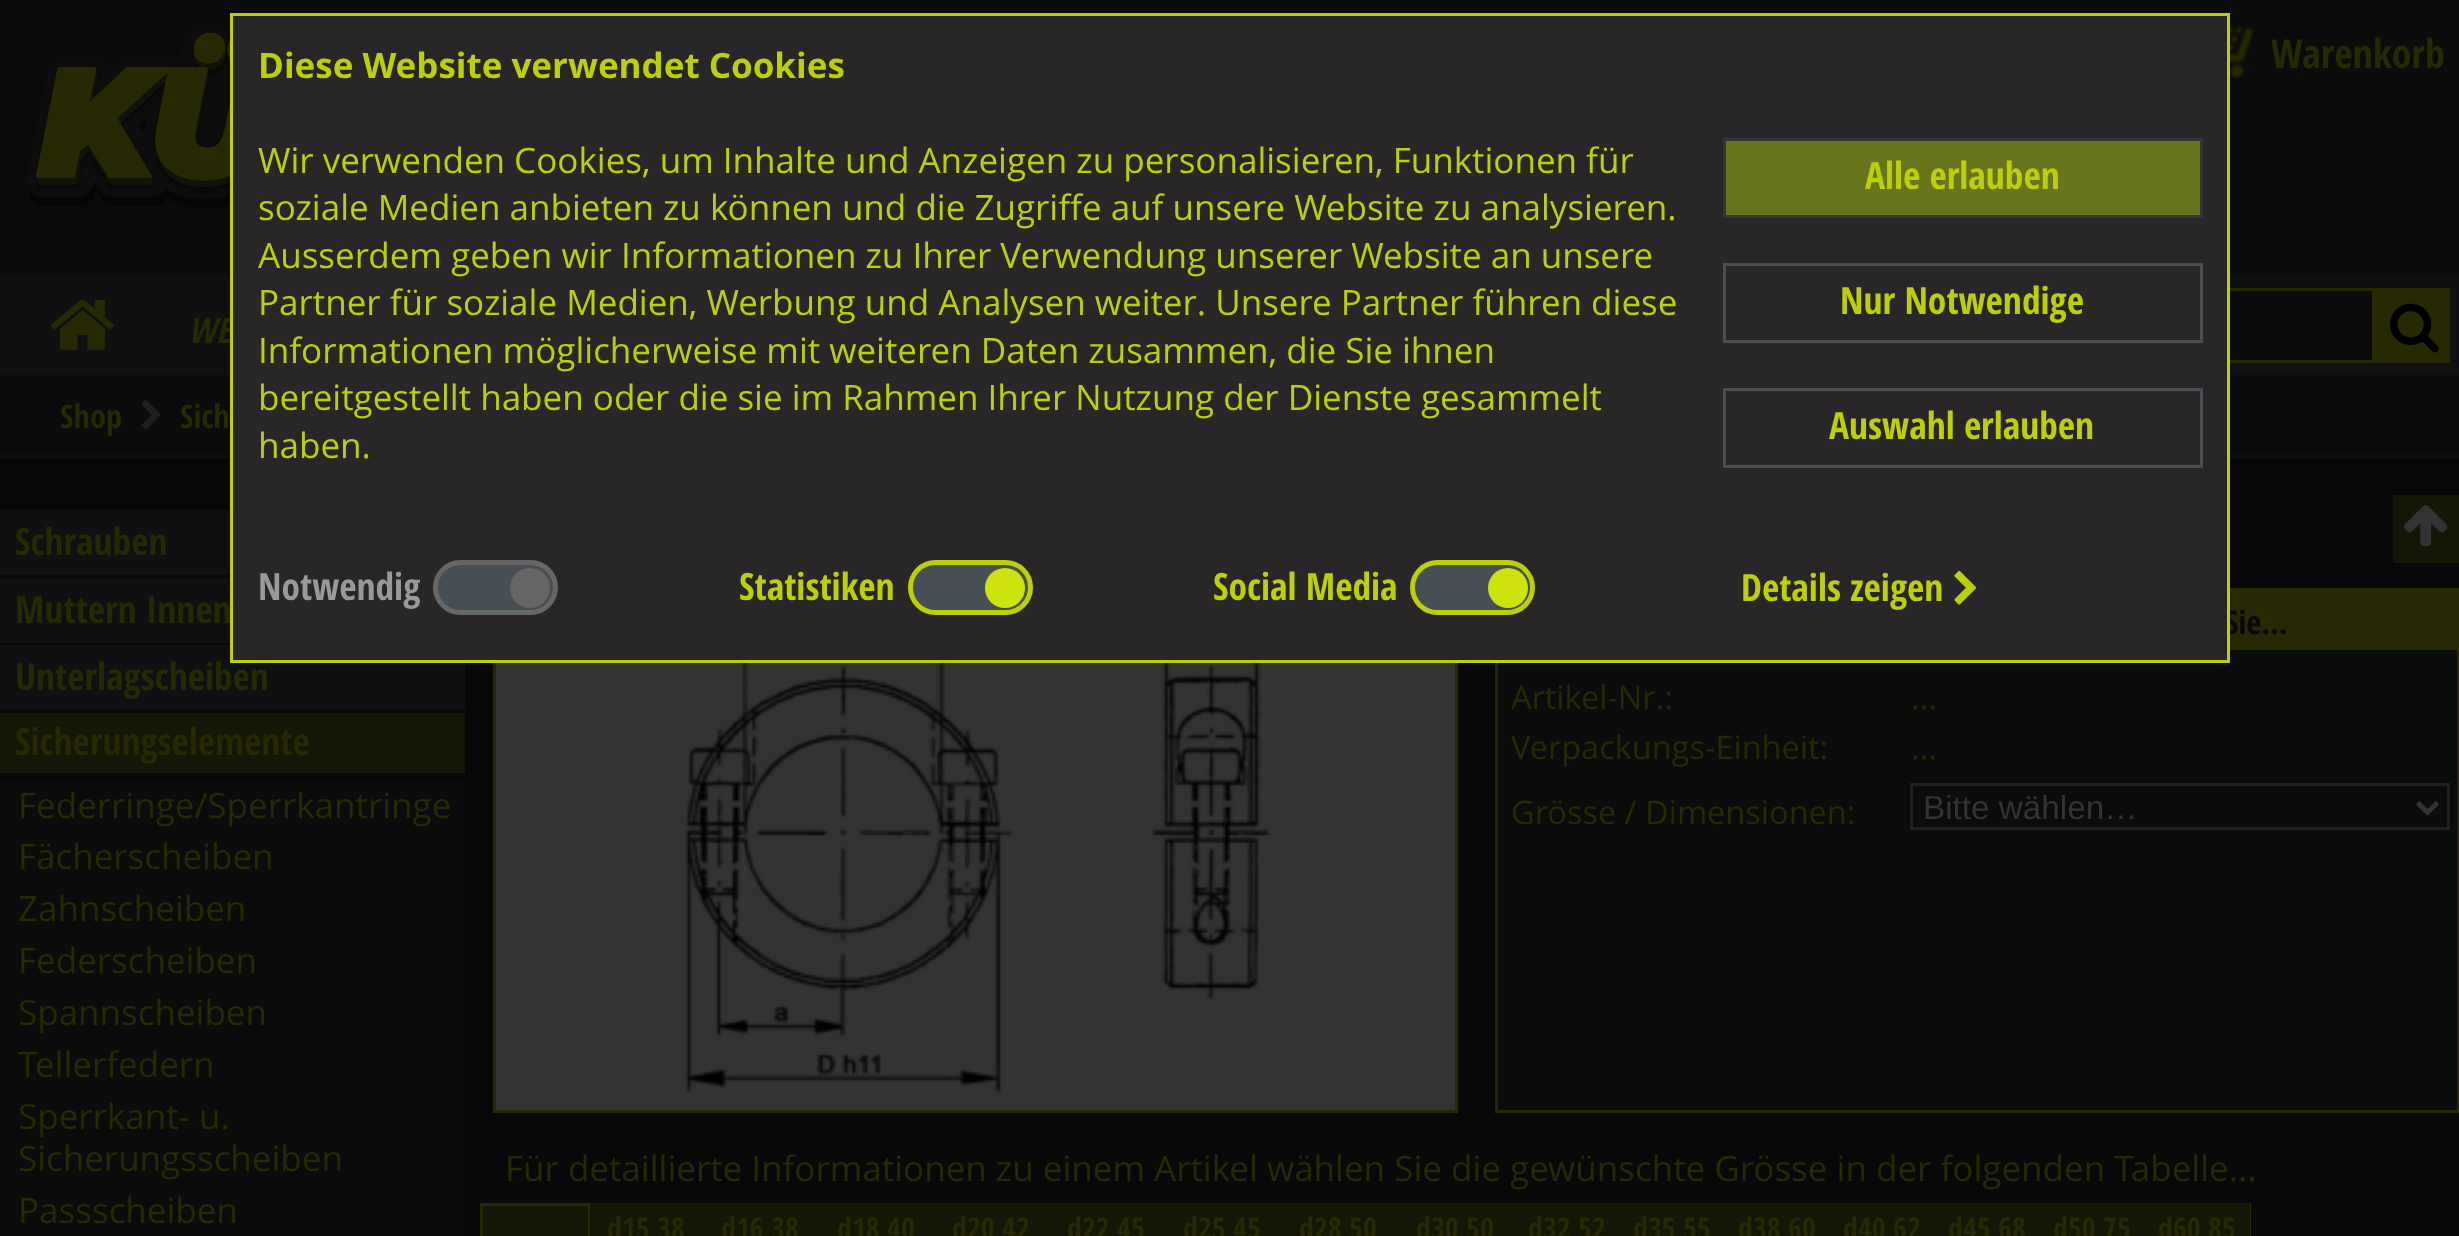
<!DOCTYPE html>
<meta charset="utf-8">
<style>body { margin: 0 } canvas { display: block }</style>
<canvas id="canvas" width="2459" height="1236"></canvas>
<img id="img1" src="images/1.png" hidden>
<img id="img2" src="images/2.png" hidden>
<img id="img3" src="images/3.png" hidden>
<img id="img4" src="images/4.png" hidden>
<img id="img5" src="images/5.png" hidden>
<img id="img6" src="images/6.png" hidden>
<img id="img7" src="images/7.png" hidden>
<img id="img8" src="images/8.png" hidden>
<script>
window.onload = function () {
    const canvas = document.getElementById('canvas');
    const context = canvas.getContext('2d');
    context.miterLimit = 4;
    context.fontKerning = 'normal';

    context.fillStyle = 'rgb(8, 8, 8)';
    context.fillRect(0, 0, 2459, 1236);
    context.fillStyle = 'rgb(10, 11, 11)';
    context.fillRect(0, 0, 2459, 275);
    context.drawImage(document.getElementById('img1'), 26, 21, 204, 188);
    context.drawImage(document.getElementById('img2'), 2230, 24, 24, 55);
    context.fillStyle = 'rgb(14, 16, 17)';
    context.fillRect(0, 275, 2459, 100);
    context.drawImage(document.getElementById('img3'), 51, 299, 63, 51);
    context.fillStyle = 'rgb(10, 11, 11)';
    context.fillRect(2230, 291, 142, 69);
    context.strokeStyle = 'rgb(38, 41, 2)';
    context.lineWidth = 3;
    context.strokeRect(1801.5, 289.5, 572, 72);
    context.fillStyle = 'rgb(38, 41, 2)';
    context.fillRect(2375, 288, 75, 75);
    context.drawImage(document.getElementById('img4'), 2390, 303, 49, 50);
    context.fillStyle = 'rgb(10, 11, 11)';
    context.fillRect(0, 375, 2459, 80);
    context.fillStyle = 'rgb(14, 16, 17)';
    context.fillRect(0, 455, 2459, 3);
    context.drawImage(document.getElementById('img5'), 141, 400, 20, 30);
    context.fillRect(0, 510, 230, 65);
    context.fillRect(0, 578, 230, 65);
    context.fillRect(0, 645, 465, 65);
    context.fillStyle = 'rgb(21, 23, 6)';
    context.fillRect(0, 713, 465, 60);
    context.fillStyle = 'rgb(10, 11, 11)';
    context.fillRect(0, 780, 465, 456);
    context.fillStyle = 'rgb(21, 23, 6)';
    context.fillRect(2393, 495, 66, 68);
    context.drawImage(document.getElementById('img6'), 2404, 505, 44, 42);
    context.fillStyle = 'rgb(51, 51, 51)';
    context.fillRect(496, 663, 959, 447);
    context.strokeRect(494.5, 589.5, 962, 522);
    context.drawImage(document.getElementById('img7'), 684, 663, 586, 431);
    context.fillStyle = 'rgb(10, 11, 11)';
    context.fillRect(1498, 650, 959, 460);
    context.strokeRect(1496.5, 589.5, 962, 522);
    context.fillStyle = 'rgb(38, 41, 2)';
    context.fillRect(2230, 591, 227, 59);
    context.strokeStyle = 'rgb(32, 32, 32)';
    context.strokeRect(1911.5, 784.5, 537, 44);
    context.beginPath();
    context.moveTo(2417.5, 802.5);
    context.lineTo(2427.5, 812.5);
    context.lineTo(2437.5, 802.5);
    context.strokeStyle = 'rgb(51, 51, 51)';
    context.lineWidth = 5;
    context.stroke();
    context.fillStyle = 'rgb(21, 23, 6)';
    context.fillRect(483, 1206, 105, 30);
    context.fillStyle = 'rgb(38, 41, 2)';
    context.fillRect(588, 1203, 2, 33);
    context.fillRect(480, 1203, 110, 3);
    context.fillRect(480, 1203, 3, 33);
    context.fillStyle = 'rgb(21, 23, 6)';
    context.fillRect(590, 1203, 1660, 33);
    context.fillStyle = 'rgb(38, 41, 2)';
    context.fillRect(2250, 1203, 1, 33);
    context.font = 'bold 40px Open Sans Condensed';
    context.fillText('Warenkorb', 2271, 68);
    context.font = 'italic bold 35px Open Sans Condensed';
    context.fillText('WE', 188, 343);
    context.font = 'bold 32.5px Open Sans Condensed';
    context.fillText('Shop', 60, 428);
    context.fillText('Sich', 180, 428);
    context.font = 'bold 37.5px Open Sans Condensed';
    context.fillText('Schrauben', 15, 555);
    context.fillText('Muttern Innen', 15, 623);
    context.fillText('Unterlagscheiben', 15, 690);
    context.fillText('Sicherungselemente', 15, 755);
    context.font = '35px Open Sans';
    context.fillText('Federringe/Sperrkantringe', 18, 818);
    context.fillText('Fächerscheiben', 18, 869);
    context.fillText('Zahnscheiben', 18, 921);
    context.fillText('Federscheiben', 18, 973);
    context.fillText('Spannscheiben', 18, 1025);
    context.fillText('Tellerfedern', 18, 1077);
    context.fillText('Sperrkant- u.', 18, 1129);
    context.fillText('Sicherungsscheiben', 18, 1171);
    context.fillText('Passscheiben', 18, 1223);
    context.font = 'bold 32.5px Open Sans Condensed';
    context.fillStyle = 'rgb(8, 8, 8)';
    context.fillText('Sie...', 2225, 634);
    context.font = '32.5px Open Sans';
    context.fillStyle = 'rgb(38, 41, 2)';
    context.fillText('Artikel-Nr.:', 1511, 709);
    context.fillText('...', 1911, 709);
    context.fillText('Verpackungs-Einheit:', 1511, 759);
    context.fillText('...', 1911, 759);
    context.fillText('Grösse / Dimensionen:', 1511, 824);
    context.font = '33.25px Liberation Sans';
    context.fillStyle = 'rgb(51, 51, 51)';
    context.fillText('Bitte wählen…', 1923, 819);
    context.font = '35px Open Sans';
    context.fillStyle = 'rgb(38, 41, 2)';
    context.fillText('Für detaillierte Informationen zu einem Artikel wählen Sie die gewünschte Grösse in der folgenden Tabelle...', 505, 1181);
    context.font = 'bold 30px Open Sans Condensed';
    context.fillText('d15 38', 607, 1239);
    context.fillText('d16 38', 721, 1239);
    context.fillText('d18 40', 837, 1239);
    context.fillText('d20 42', 952, 1239);
    context.fillText('d22 45', 1067, 1239);
    context.fillText('d25 45', 1183, 1239);
    context.fillText('d28 50', 1299, 1239);
    context.fillText('d30 50', 1416, 1239);
    context.fillText('d32 52', 1528, 1239);
    context.fillText('d35 55', 1633, 1239);
    context.fillText('d38 60', 1738, 1239);
    context.fillText('d40 62', 1843, 1239);
    context.fillText('d45 68', 1948, 1239);
    context.fillText('d50 75', 2053, 1239);
    context.fillText('d60 85', 2158, 1239);
    context.fillStyle = 'rgb(40, 38, 39)';
    context.beginPath();
    context.rect(231.5, 14.5, 1997, 647);
    context.fill();
    context.strokeStyle = 'rgb(188, 207, 10)';
    context.lineWidth = 3;
    context.stroke();
    context.font = 'bold 35px Open Sans';
    context.fillStyle = 'rgb(188, 207, 10)';
    context.fillText('Diese Website verwendet Cookies', 258, 78);
    context.font = '35px Open Sans';
    context.fillText('Wir verwenden Cookies, um Inhalte und Anzeigen zu personalisieren, Funktionen für', 258, 173);
    context.fillText('soziale Medien anbieten zu können und die Zugriffe auf unsere Website zu analysieren.', 258, 220);
    context.fillText('Ausserdem geben wir Informationen zu Ihrer Verwendung unserer Website an unsere', 258, 268);
    context.fillText('Partner für soziale Medien, Werbung und Analysen weiter. Unsere Partner führen diese', 258, 315);
    context.fillText('Informationen möglicherweise mit weiteren Daten zusammen, die Sie ihnen', 258, 363);
    context.fillText('bereitgestellt haben oder die sie im Rahmen Ihrer Nutzung der Dienste gesammelt', 258, 410);
    context.fillText('haben.', 258, 458);
    context.fillStyle = 'rgb(105, 117, 28)';
    context.beginPath();
    context.rect(1724.5, 139.5, 477, 77);
    context.fill();
    context.strokeStyle = 'rgb(49, 54, 57)';
    context.stroke();
    context.font = 'bold 37.5px Open Sans Condensed';
    context.fillStyle = 'rgb(188, 207, 10)';
    context.fillText('Alle erlauben', 1865, 189);
    context.strokeStyle = 'rgb(69, 79, 84)';
    context.strokeRect(1724.5, 264.5, 477, 77);
    context.fillText('Nur Notwendige', 1840, 314);
    context.strokeRect(1724.5, 389.5, 477, 77);
    context.fillText('Auswahl erlauben', 1829, 439);
    context.fillStyle = 'rgb(153, 153, 153)';
    context.fillText('Notwendig', 258, 600);
    context.fillStyle = 'rgb(69, 79, 84)';
    context.beginPath();
    context.roundRect(435.5, 562.5, 120, 50, 25);
    context.fill();
    context.strokeStyle = 'rgb(102, 102, 102)';
    context.lineWidth = 5;
    context.stroke();
    context.fillStyle = 'rgb(102, 102, 102)';
    context.beginPath();
    context.arc(530, 588, 20, 0, 2 * Math.PI);
    context.fill();
    context.fillStyle = 'rgb(188, 207, 10)';
    context.fillText('Statistiken', 739, 600);
    context.fillStyle = 'rgb(69, 79, 84)';
    context.beginPath();
    context.roundRect(910.5, 562.5, 120, 50, 25);
    context.fill();
    context.strokeStyle = 'rgb(188, 207, 10)';
    context.stroke();
    context.fillStyle = 'rgb(205, 228, 12)';
    context.beginPath();
    context.arc(1005, 588, 20, 0, 2 * Math.PI);
    context.fill();
    context.fillStyle = 'rgb(188, 207, 10)';
    context.fillText('Social Media', 1213, 600);
    context.fillStyle = 'rgb(69, 79, 84)';
    context.beginPath();
    context.roundRect(1412.5, 562.5, 120, 50, 25);
    context.fill();
    context.stroke();
    context.fillStyle = 'rgb(205, 228, 12)';
    context.beginPath();
    context.arc(1508, 588, 20, 0, 2 * Math.PI);
    context.fill();
    context.fillStyle = 'rgb(188, 207, 10)';
    context.fillText('Details zeigen', 1741, 601);
    context.drawImage(document.getElementById('img8'), 1954, 570, 22, 35);
};
</script>
